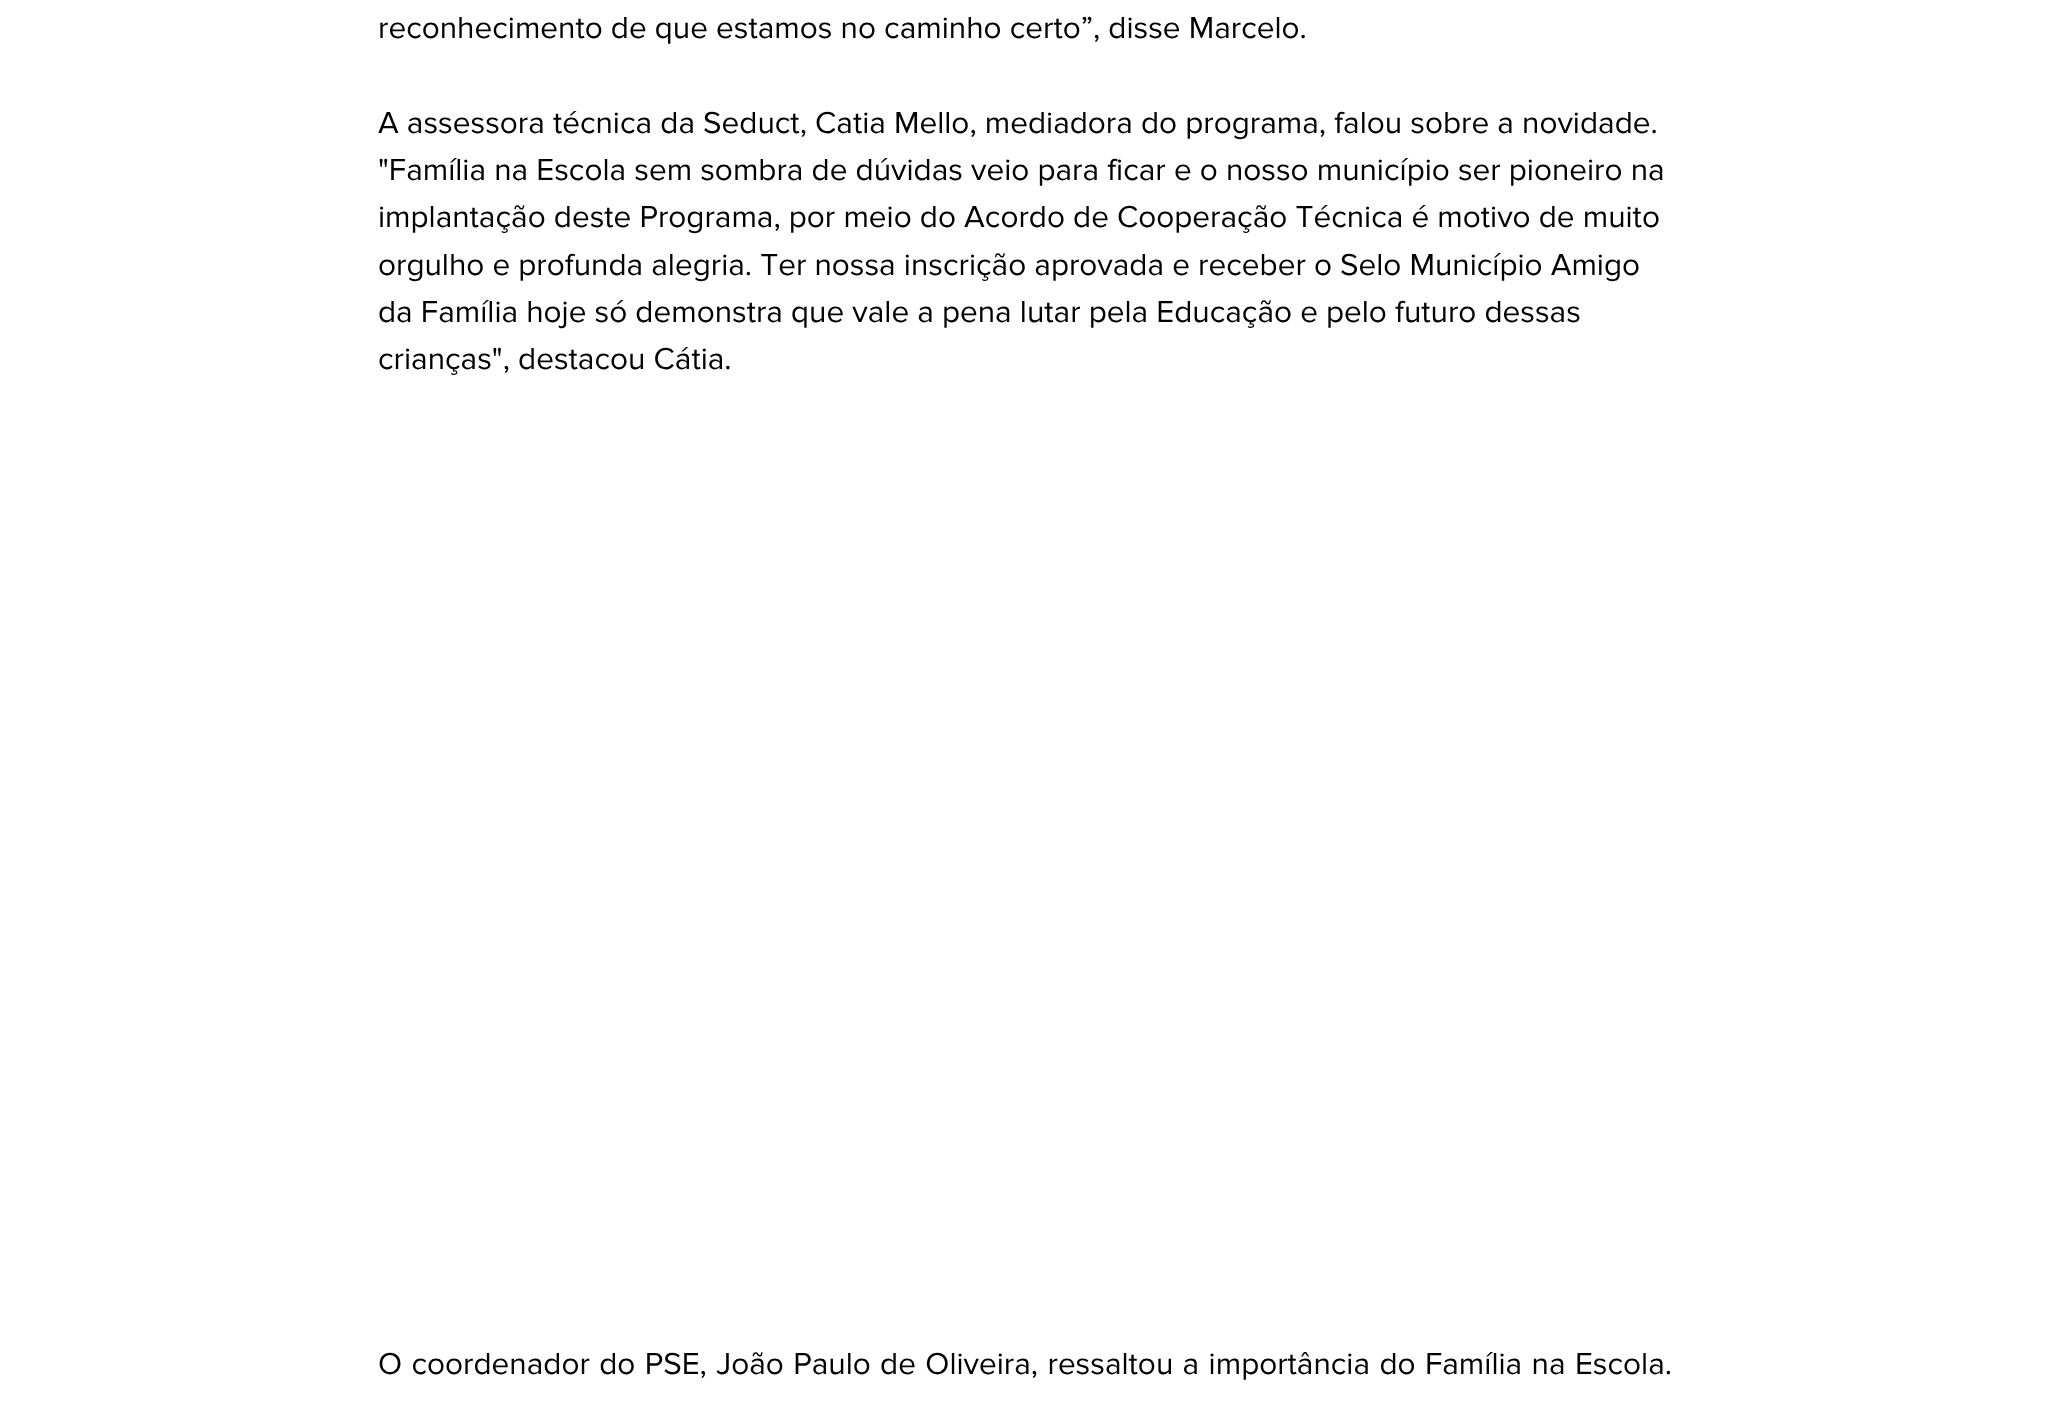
<!DOCTYPE html>
<meta charset="utf-8">
<style>body { margin: 0 } canvas { display: block }</style>
<canvas id="canvas" width="2051" height="1404"></canvas>
<script>
window.onload = function () {
    const canvas = document.getElementById('canvas');
    const context = canvas.getContext('2d');
    context.miterLimit = 4;
    context.fontKerning = 'normal';

    context.fillStyle = 'rgb(255, 255, 255)';
    context.fillRect(0, 0, 2051, 1404);
    context.font = '31.5px "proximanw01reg"';
    context.fillStyle = 'rgb(0, 0, 0)';
    context.fillText('reconhecimento de que estamos no caminho certo”, disse Marcelo.', 378, 38);
    context.fillText('A assessora técnica da Seduct, Catia Mello, mediadora do programa, falou sobre a novidade.', 378, 133);
    context.fillText('"Família na Escola sem sombra de dúvidas veio para ficar e o nosso município ser pioneiro na', 378, 180);
    context.fillText('implantação deste Programa, por meio do Acordo de Cooperação Técnica é motivo de muito', 378, 227);
    context.fillText('orgulho e profunda alegria. Ter nossa inscrição aprovada e receber o Selo Município Amigo', 378, 275);
    context.fillText('da Família hoje só demonstra que vale a pena lutar pela Educação e pelo futuro dessas', 378, 322);
    context.fillText('crianças", destacou Cátia.', 378, 369);
    context.wordSpacing = '1.25px';
    context.fillText('O coordenador do PSE, João Paulo de Oliveira, ressaltou a importância do Família na Escola.', 378, 1374);
};
</script>
